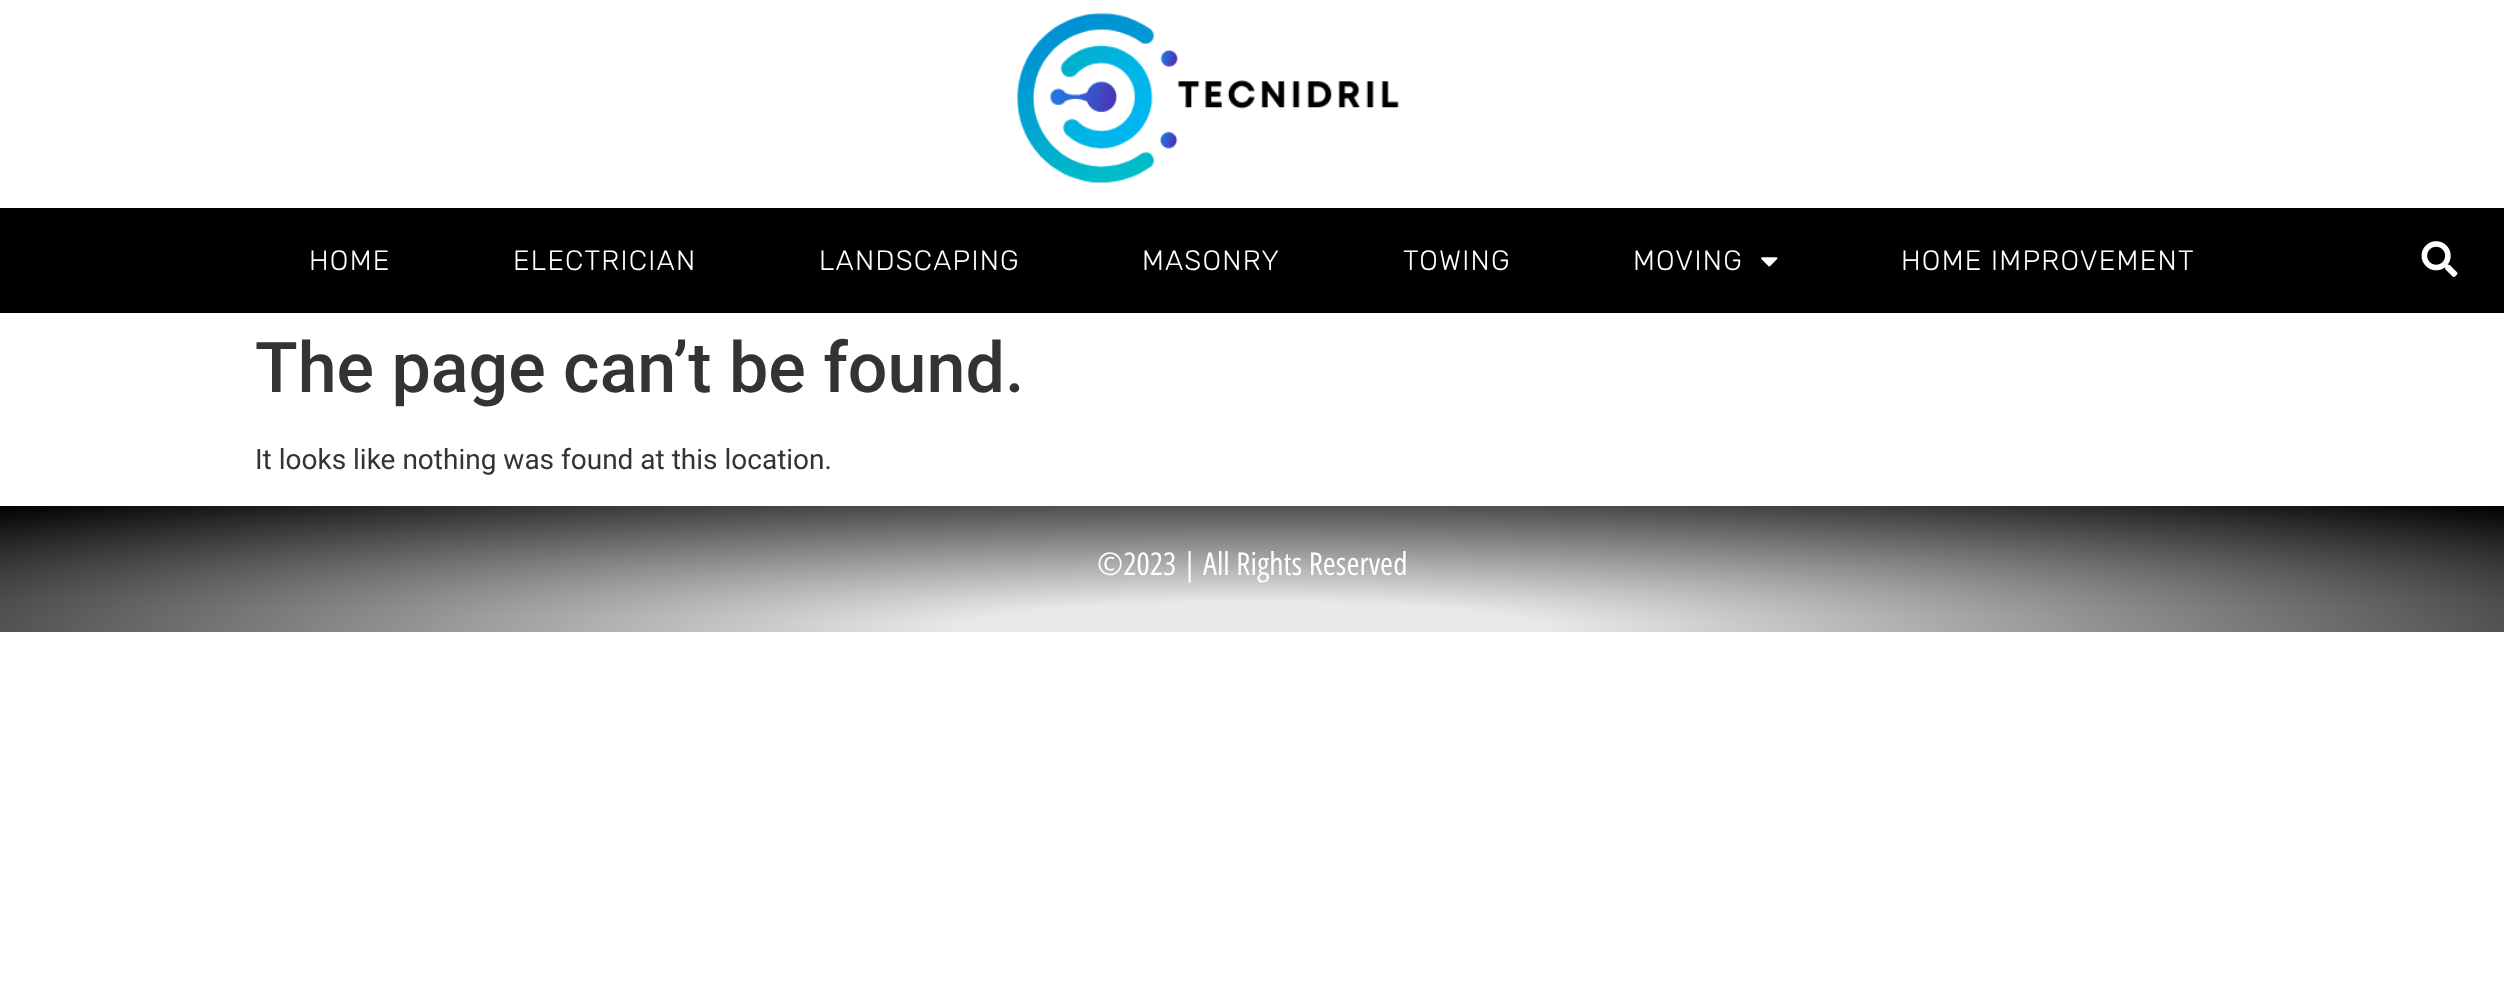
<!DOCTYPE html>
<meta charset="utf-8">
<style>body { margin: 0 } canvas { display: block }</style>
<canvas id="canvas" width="2504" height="989"></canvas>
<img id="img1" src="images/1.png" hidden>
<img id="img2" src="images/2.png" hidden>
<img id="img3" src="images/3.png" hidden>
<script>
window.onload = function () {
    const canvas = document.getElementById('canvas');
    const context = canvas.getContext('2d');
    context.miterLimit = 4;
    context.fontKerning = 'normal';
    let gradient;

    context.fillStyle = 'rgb(255, 255, 255)';
    context.fillRect(0, 0, 2504, 989);
    context.drawImage(document.getElementById('img1'), 1017, 13, 382, 171);
    context.fillStyle = 'rgb(0, 0, 0)';
    context.fillRect(0, 208, 2504, 105);
    context.drawImage(document.getElementById('img2'), 1761, 257, 17, 10);
    context.drawImage(document.getElementById('img3'), 2421, 241, 37, 36);
    gradient = context.createRadialGradient(1252, 6288.04, 0, 1252, 6288.04, 1771);
    gradient.addColorStop(0.17, 'rgb(232, 232, 232)');
    gradient.addColorStop(1, 'rgb(0, 0, 0)');
    context.fillStyle = gradient;
    context.beginPath();
    context.rect(0, 506, 2504, 126);
    context.save();
    context.clip();
    context.scale(1, 178 / 1771);
    context.fillRect(0, 0, 2504, 9840);
    context.restore();
    context.letterSpacing = '1.25px';
    context.font = '300 28px Rubik';
    context.fillStyle = 'rgb(255, 255, 255)';
    context.fillText('HOME', 309, 270);
    context.fillText('ELECTRICIAN', 513, 270);
    context.fillText('LANDSCAPING', 819, 270);
    context.fillText('MASONRY', 1142, 270);
    context.fillText('TOWING', 1403, 270);
    context.fillText('MOVING', 1633, 270);
    context.fillText('HOME IMPROVEMENT', 1901, 270);
    context.letterSpacing = '0px';
    context.font = '500 70px Roboto';
    context.fillStyle = 'rgb(51, 51, 51)';
    context.fillText('The page can’t be found.', 255, 392);
    context.font = '28px Roboto';
    context.fillText('It looks like nothing was found at this location.', 255, 469);
    context.font = '31.5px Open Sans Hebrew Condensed';
    context.fillStyle = 'rgb(255, 255, 255)';
    context.fillText('©2023 | All Rights Reserved', 1097, 575);
};
</script>
